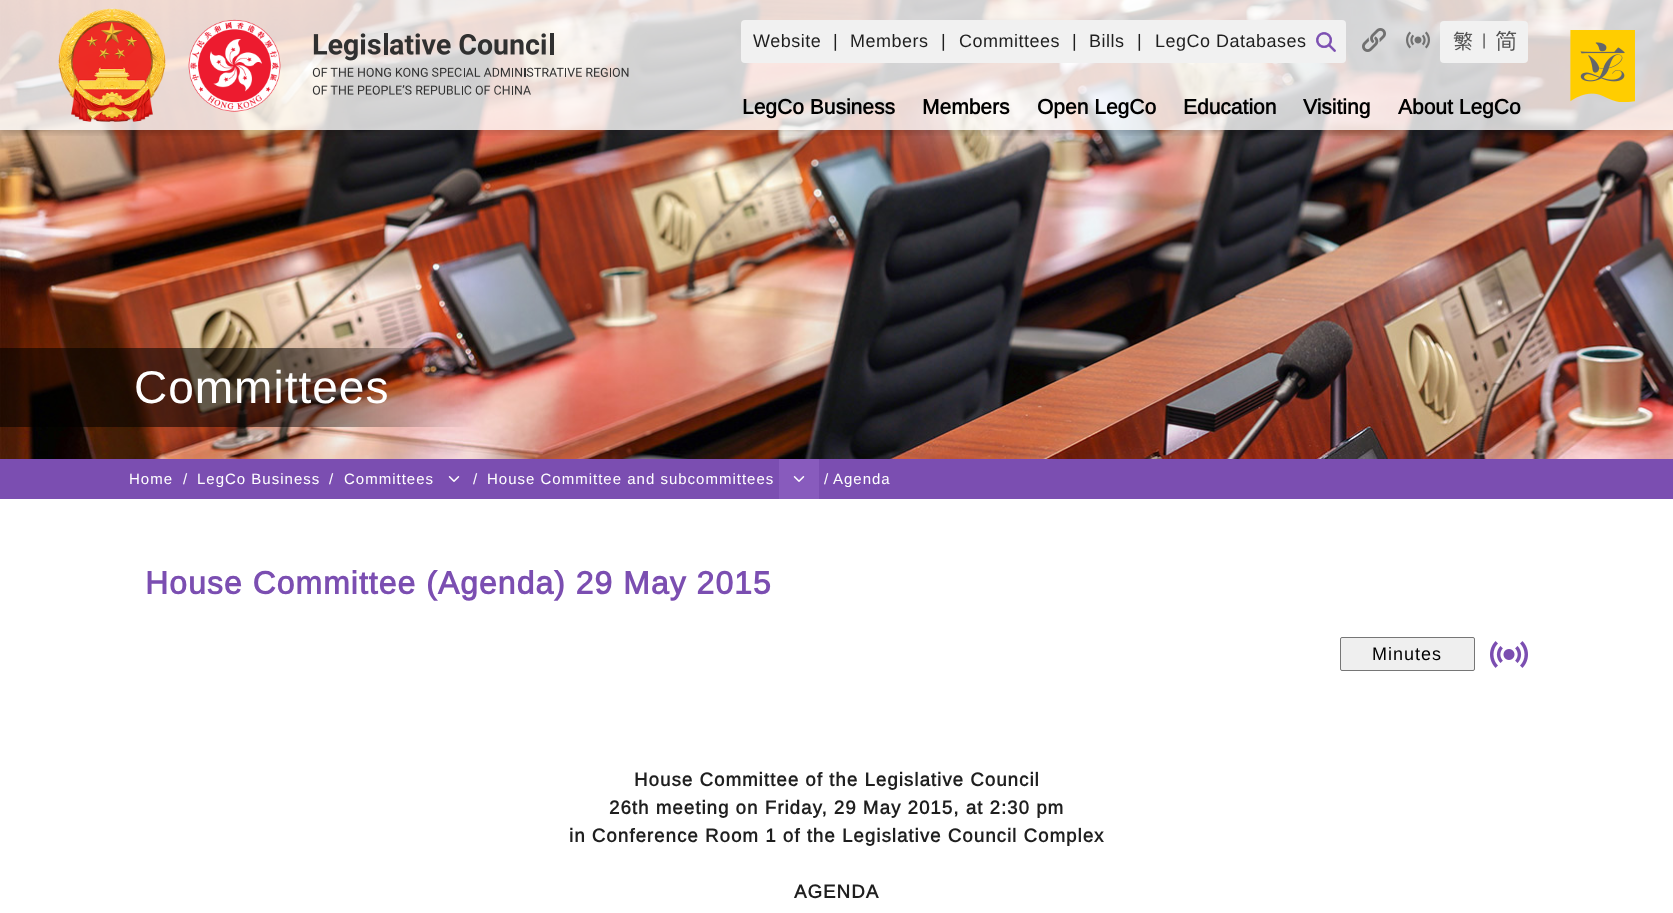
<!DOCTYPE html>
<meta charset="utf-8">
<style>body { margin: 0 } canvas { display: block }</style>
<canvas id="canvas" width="1673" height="913"></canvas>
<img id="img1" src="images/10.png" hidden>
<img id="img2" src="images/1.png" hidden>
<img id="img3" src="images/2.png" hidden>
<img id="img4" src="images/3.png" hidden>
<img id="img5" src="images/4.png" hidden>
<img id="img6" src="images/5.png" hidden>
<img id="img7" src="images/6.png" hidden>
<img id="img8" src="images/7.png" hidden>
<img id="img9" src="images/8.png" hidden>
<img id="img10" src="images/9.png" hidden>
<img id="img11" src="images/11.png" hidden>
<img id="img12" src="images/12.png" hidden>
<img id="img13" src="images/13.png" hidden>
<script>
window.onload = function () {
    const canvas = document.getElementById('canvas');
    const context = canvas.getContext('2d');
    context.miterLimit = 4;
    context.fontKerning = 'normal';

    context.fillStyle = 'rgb(255, 255, 255)';
    context.fillRect(0, 0, 1673, 913);
    context.drawImage(document.getElementById('img1'), 0, 0, 1673, 459);
    context.save();
    context.beginPath();
    context.rect(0, 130, 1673, 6);
    context.clip();
    context.fillStyle = 'rgba(0, 0, 0, 0.16)';
    context.filter = 'blur(3px)';
    context.beginPath();
    context.rect(0, 3, 1673, 130);
    context.fill();
    context.filter = 'none';
    context.restore();
    context.fillStyle = 'rgba(255, 255, 255, 0.8)';
    context.fillRect(0, 0, 1673, 130);
    context.drawImage(document.getElementById('img2'), 58, 8, 108, 114);
    context.drawImage(document.getElementById('img3'), 188, 19, 93, 93);
    context.drawImage(document.getElementById('img4'), 312, 33, 317, 62);
    context.fillStyle = 'rgb(241, 241, 241)';
    context.beginPath();
    context.roundRect(741, 20, 605, 43, 4);
    context.fill();
    context.drawImage(document.getElementById('img5'), 1316, 32, 20, 20);
    context.drawImage(document.getElementById('img6'), 1362, 28, 24, 24);
    context.drawImage(document.getElementById('img7'), 1406, 31, 24, 18);
    context.beginPath();
    context.roundRect(1440, 21, 42, 42, [4, 0, 0, 4]);
    context.fill();
    context.drawImage(document.getElementById('img8'), 1453, 31, 20, 20);
    context.fillRect(1482, 21, 4, 42);
    context.beginPath();
    context.roundRect(1486, 21, 42, 42, [0, 4, 4, 0]);
    context.fill();
    context.drawImage(document.getElementById('img9'), 1496, 30, 21, 21);
    context.drawImage(document.getElementById('img10'), 1570, 30, 65, 72);
    context.fillStyle = 'rgb(123, 78, 177)';
    context.fillRect(0, 459, 1673, 40);
    context.drawImage(document.getElementById('img11'), 448, 476, 12, 6);
    context.fillStyle = 'rgb(136, 91, 189)';
    context.fillRect(779, 459, 40, 40);
    context.drawImage(document.getElementById('img12'), 793, 476, 12, 6);
    context.fillStyle = 'rgb(239, 239, 239)';
    context.beginPath();
    context.roundRect(1340.5, 637.5, 134, 33, 1.5);
    context.fill();
    context.strokeStyle = 'rgb(118, 118, 118)';
    context.stroke();
    context.drawImage(document.getElementById('img13'), 1490, 641, 38, 27);
    context.letterSpacing = '0.5px';
    context.font = '18px Arimo';
    context.fillStyle = 'rgb(31, 31, 31)';
    context.fillText('Website', 753, 47);
    context.letterSpacing = '1px';
    context.fillText('|', 833, 47);
    context.letterSpacing = '0.5px';
    context.fillText('Members', 850, 47);
    context.letterSpacing = '1px';
    context.fillText('|', 941, 47);
    context.letterSpacing = '0.5px';
    context.fillText('Committees', 959, 47);
    context.letterSpacing = '1px';
    context.fillText('|', 1072, 47);
    context.letterSpacing = '0.5px';
    context.fillText('Bills', 1089, 47);
    context.letterSpacing = '1px';
    context.fillText('|', 1137, 47);
    context.letterSpacing = '0.5px';
    context.fillText('LegCo Databases', 1155, 47);
    context.letterSpacing = '1px';
    context.font = '16px Arimo';
    context.fillStyle = 'rgb(80, 80, 80)';
    context.fillText('|', 1482, 45);
    context.letterSpacing = '0px';
    context.font = 'bold 21px Arimo';
    context.fillStyle = 'rgb(0, 0, 0)';
    context.fillText('LegCo Business', 742, 114);
    context.fillText('Members', 922, 114);
    context.fillText('Open LegCo', 1037, 114);
    context.fillText('Education', 1183, 114);
    context.fillText('Visiting', 1303, 114);
    context.fillText('About LegCo', 1398, 114);
    context.letterSpacing = '1px';
    context.font = '46px Arimo';
    context.fillStyle = 'rgb(255, 255, 255)';
    context.fillText('Committees', 134, 403);
    context.font = '15px Arimo';
    context.fillText('Home', 129, 484);
    context.fillText('/', 183, 484);
    context.fillText('LegCo Business', 197, 484);
    context.fillText('/', 329, 484);
    context.fillText('Committees', 344, 484);
    context.fillText('/', 473, 484);
    context.fillText('House Committee and subcommittees', 487, 484);
    context.fillText('/', 824, 484);
    context.fillText('Agenda', 833, 484);
    context.font = 'bold 32px Arimo';
    context.fillStyle = 'rgb(123, 78, 177)';
    context.fillText('House Committee (Agenda) 29 May 2015', 145, 594);
    context.font = '18px Arimo';
    context.fillStyle = 'rgb(0, 0, 0)';
    context.fillText('Minutes', 1372, 660);
    context.font = 'bold 18.75px Arimo';
    context.fillStyle = 'rgb(31, 31, 31)';
    context.fillText('House Committee of the Legislative Council', 634, 786);
    context.fillText('26th meeting on Friday, 29 May 2015, at 2:30 pm', 609, 814);
    context.fillText('in Conference Room 1 of the Legislative Council Complex', 569, 842);
    context.fillText('AGENDA', 794, 898);
};
</script>
